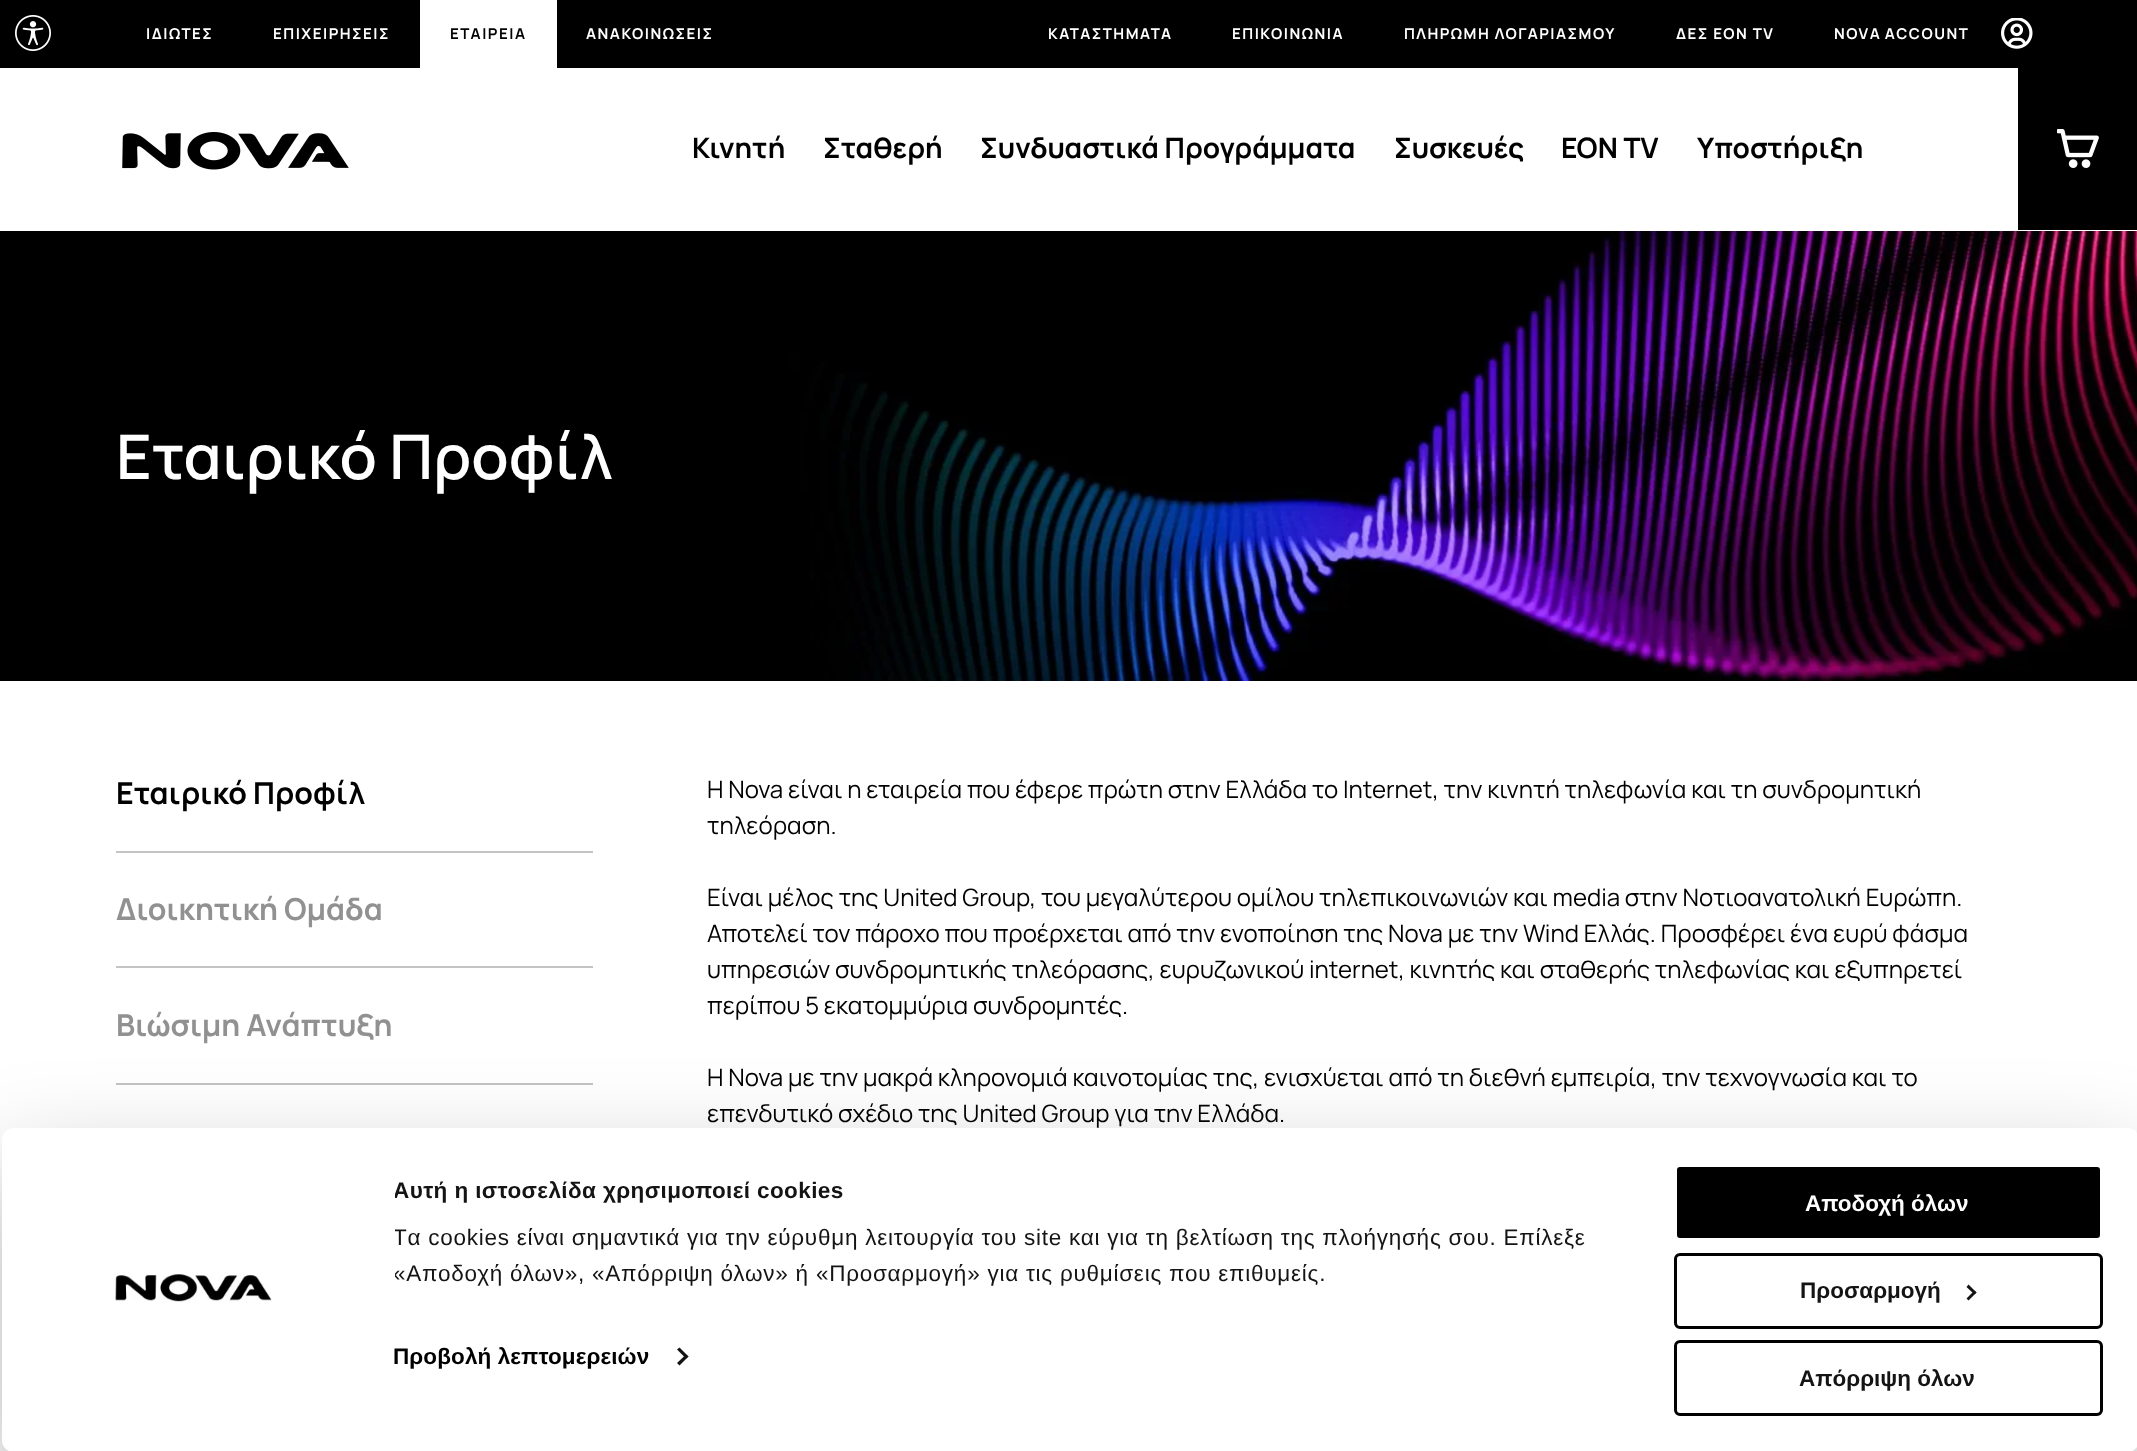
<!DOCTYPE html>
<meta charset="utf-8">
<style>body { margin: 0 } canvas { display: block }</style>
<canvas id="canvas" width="2137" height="1451"></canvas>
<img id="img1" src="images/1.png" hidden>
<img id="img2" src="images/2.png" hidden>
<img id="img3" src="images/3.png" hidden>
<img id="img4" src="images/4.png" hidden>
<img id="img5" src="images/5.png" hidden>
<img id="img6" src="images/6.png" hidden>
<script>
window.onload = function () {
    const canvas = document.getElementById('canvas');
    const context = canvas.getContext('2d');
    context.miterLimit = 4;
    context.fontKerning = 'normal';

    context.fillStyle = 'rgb(255, 255, 255)';
    context.fillRect(0, 0, 2137, 1451);
    context.fillStyle = 'rgb(0, 0, 0)';
    context.fillRect(0, 0, 2137, 68);
    context.drawImage(document.getElementById('img1'), 15, 15, 36, 36);
    context.fillStyle = 'rgb(255, 255, 255)';
    context.fillRect(420, 0, 137, 68);
    context.drawImage(document.getElementById('img2'), 2001, 18, 32, 31);
    context.drawImage(document.getElementById('img3'), 122, 132, 227, 38);
    context.fillStyle = 'rgb(0, 0, 0)';
    context.fillRect(2018, 68, 119, 162);
    context.drawImage(document.getElementById('img4'), 2057, 129, 42, 39);
    context.drawImage(document.getElementById('img5'), 0, 231, 2137, 450);
    context.fillStyle = 'rgb(196, 196, 196)';
    context.fillRect(116, 851, 477, 2);
    context.fillRect(116, 966, 477, 2);
    context.fillRect(116, 1083, 477, 2);
    context.save();
    context.beginPath();
    context.moveTo(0, 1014);
    context.lineTo(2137, 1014);
    context.lineTo(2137, 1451);
    context.lineTo(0, 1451);
    context.closePath();
    context.moveTo(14, 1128);
    context.lineTo(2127, 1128);
    context.bezierCurveTo(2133.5, 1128, 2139, 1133.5, 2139, 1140);
    context.lineTo(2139, 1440);
    context.bezierCurveTo(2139, 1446.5, 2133.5, 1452, 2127, 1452);
    context.lineTo(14, 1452);
    context.bezierCurveTo(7.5, 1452, 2, 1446.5, 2, 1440);
    context.lineTo(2, 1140);
    context.bezierCurveTo(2, 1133.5, 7.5, 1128, 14, 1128);
    context.closePath();
    context.clip('evenodd');
    context.fillStyle = 'rgba(0, 0, 0, 0.3)';
    context.filter = 'blur(52.5px)';
    context.beginPath();
    context.roundRect(2, 1173, 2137, 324, 12);
    context.fill();
    context.filter = 'none';
    context.restore();
    context.fillStyle = 'rgb(255, 255, 255)';
    context.beginPath();
    context.roundRect(2, 1128, 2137, 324, 12);
    context.fill();
    context.drawImage(document.getElementById('img6'), 115, 1274, 157, 28);
    context.fillStyle = 'rgb(20, 20, 20)';
    context.beginPath();
    context.moveTo(679.5, 1347.5);
    context.lineTo(688.5, 1356.5);
    context.lineTo(686, 1358.5);
    context.lineTo(677, 1349.5);
    context.closePath();
    context.fill();
    context.beginPath();
    context.moveTo(686, 1354.5);
    context.lineTo(688.5, 1356.5);
    context.lineTo(679.5, 1365.5);
    context.lineTo(677, 1363);
    context.closePath();
    context.fill();
    context.fillStyle = 'rgb(0, 0, 0)';
    context.beginPath();
    context.roundRect(1675.5, 1165.5, 426, 74, 4.5);
    context.fill();
    context.strokeStyle = 'rgb(255, 255, 255)';
    context.lineWidth = 3;
    context.stroke();
    context.beginPath();
    context.roundRect(1675.5, 1254.5, 426, 73, 4.5);
    context.strokeStyle = 'rgb(0, 0, 0)';
    context.stroke();
    context.fillStyle = 'rgb(20, 20, 20)';
    context.beginPath();
    context.moveTo(1968.5, 1284.5);
    context.lineTo(1976.5, 1292.5);
    context.lineTo(1974.5, 1294.5);
    context.lineTo(1966.5, 1287);
    context.closePath();
    context.fill();
    context.beginPath();
    context.moveTo(1974.5, 1290.5);
    context.lineTo(1976.5, 1292.5);
    context.lineTo(1968.5, 1300.5);
    context.lineTo(1966.5, 1298.5);
    context.closePath();
    context.fill();
    context.beginPath();
    context.roundRect(1675.5, 1341.5, 426, 73, 4.5);
    context.stroke();
    context.letterSpacing = '1.5px';
    context.font = 'bold 15px Manrope';
    context.fillStyle = 'rgb(255, 255, 255)';
    context.fillText('ΙΔΙΩΤΕΣ', 146, 39);
    context.fillText('ΕΠΙΧΕΙΡΗΣΕΙΣ', 273, 39);
    context.fillStyle = 'rgb(0, 0, 0)';
    context.fillText('ΕΤΑΙΡΕΙΑ', 450, 39);
    context.fillStyle = 'rgb(255, 255, 255)';
    context.fillText('ΑΝΑΚΟΙΝΩΣΕΙΣ', 586, 39);
    context.fillText('ΚΑΤΑΣΤΗΜΑΤΑ', 1048, 39);
    context.fillText('ΕΠΙΚΟΙΝΩΝΙΑ', 1232, 39);
    context.fillText('ΠΛΗΡΩΜΗ ΛΟΓΑΡΙΑΣΜΟΥ', 1404, 39);
    context.fillText('ΔΕΣ EON TV', 1676, 39);
    context.wordSpacing = '-1px';
    context.fillText('NOVA ACCOUNT', 1834, 39);
    context.letterSpacing = '0px';
    context.wordSpacing = '0px';
    context.font = 'bold 28.1px Manrope';
    context.fillStyle = 'rgb(0, 0, 0)';
    context.fillText('Κινητή', 692, 158);
    context.fillText('Σταθερή', 823, 158);
    context.fillText('Συνδυαστικά Προγράμματα', 980, 158);
    context.fillText('Συσκευές', 1394, 158);
    context.fillText('EON TV', 1561, 158);
    context.fillText('Υποστήριξη', 1697, 158);
    context.font = '600 61.5px Manrope';
    context.fillStyle = 'rgb(255, 255, 255)';
    context.fillText('Εταιρικό Προφίλ', 116, 479);
    context.font = 'bold 30.25px Manrope';
    context.fillStyle = 'rgb(0, 0, 0)';
    context.fillText('Εταιρικό Προφίλ', 116, 804);
    context.fillStyle = 'rgb(145, 145, 145)';
    context.fillText('Διοικητική Ομάδα', 116, 920);
    context.fillText('Βιώσιμη Ανάπτυξη', 116, 1036);
    context.font = '24px Manrope';
    context.fillStyle = 'rgb(0, 0, 0)';
    context.fillText('Η Νova είναι η εταιρεία που έφερε πρώτη στην Ελλάδα το Internet, την κινητή τηλεφωνία και τη συνδρομητική', 707, 798);
    context.fillText('τηλεόραση.', 707, 834);
    context.fillText('Είναι μέλος της United Group, του μεγαλύτερου ομίλου τηλεπικοινωνιών και media στην Νοτιοανατολική Ευρώπη.', 707, 906);
    context.fillText('Αποτελεί τον πάροχο που προέρχεται από την ενοποίηση της Nova με την Wind Ελλάς. Προσφέρει ένα ευρύ φάσμα', 707, 942);
    context.fillText('υπηρεσιών συνδρομητικής τηλεόρασης, ευρυζωνικού internet, κινητής και σταθερής τηλεφωνίας και εξυπηρετεί', 707, 978);
    context.fillText('περίπου 5 εκατομμύρια συνδρομητές.', 707, 1014);
    context.fillText('Η Nova με την μακρά κληρονομιά καινοτομίας της, ενισχύεται από τη διεθνή εμπειρία, την τεχνογνωσία και το', 707, 1086);
    context.fillText('επενδυτικό σχέδιο της United Group για την Ελλάδα.', 707, 1122);
    context.save();
    context.beginPath();
    context.rect(395, 1173, 1270, 119);
    context.clip();
    context.letterSpacing = '0.4px';
    context.font = 'bold 22.5px Liberation Sans';
    context.fillStyle = 'rgb(20, 20, 20)';
    context.fillText('Αυτή η ιστοσελίδα χρησιμοποιεί cookies', 393, 1198);
    context.letterSpacing = '0.75px';
    context.font = '22.5px Liberation Sans';
    context.fillText('Tα cookies είναι σημαντικά για την εύρυθμη λειτουργία του site και για τη βελτίωση της πλοήγησής σου. Επίλεξε', 393, 1245);
    context.fillText('«Αποδοχή όλων», «Απόρριψη όλων» ή «Προσαρμογή» για τις ρυθμίσεις που επιθυμείς.', 393, 1281);
    context.restore();
    context.letterSpacing = '0.1px';
    context.font = 'bold 22.5px Liberation Sans';
    context.fillText('Προβολή λεπτομερειών', 393, 1364);
    context.letterSpacing = '0px';
    context.fillStyle = 'rgb(255, 255, 255)';
    context.fillText('Αποδοχή όλων', 1805, 1211);
    context.fillStyle = 'rgb(20, 20, 20)';
    context.fillText('Προσαρμογή', 1800, 1298);
    context.fillText('Απόρριψη όλων', 1799, 1386);
};
</script>
